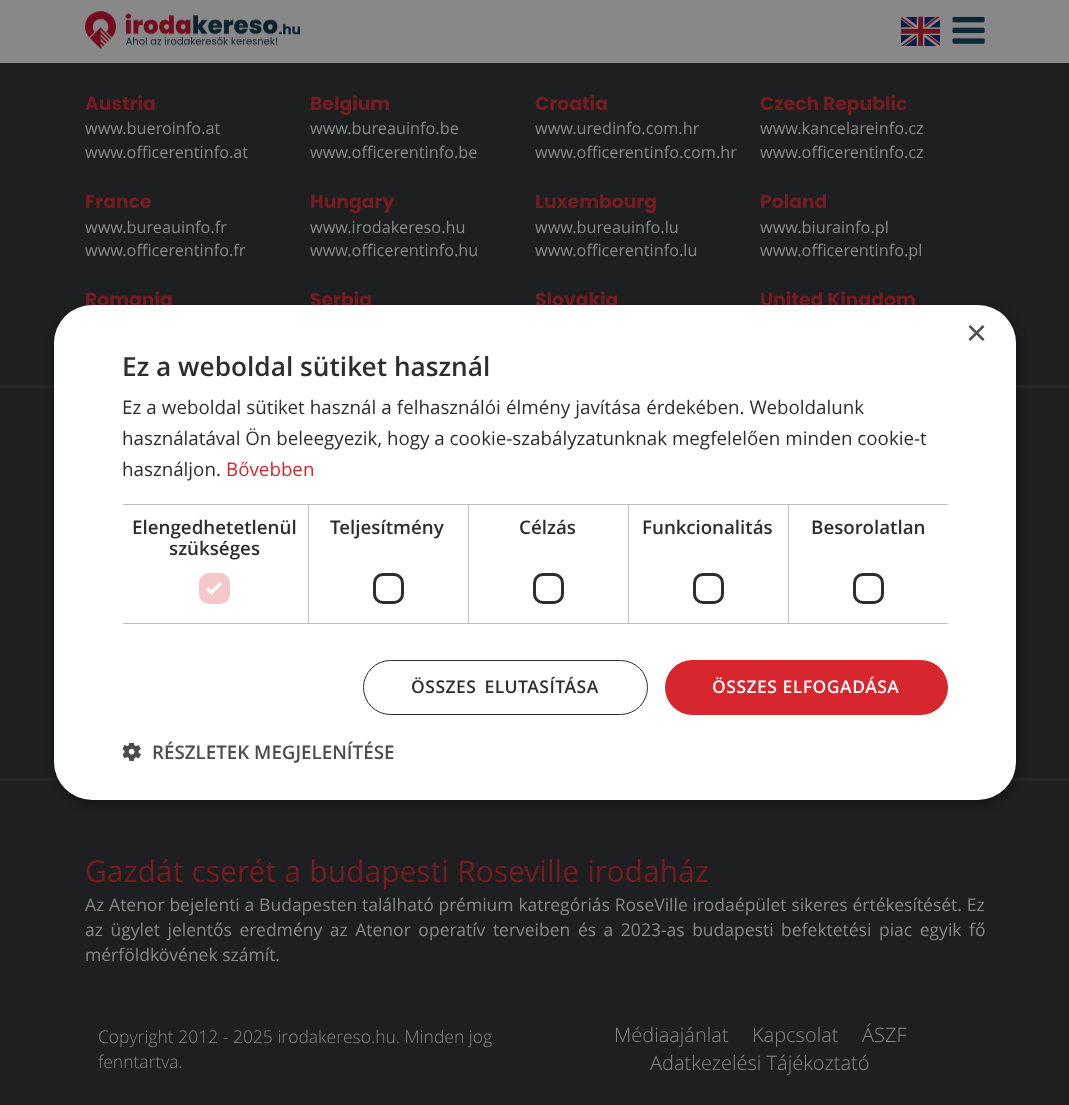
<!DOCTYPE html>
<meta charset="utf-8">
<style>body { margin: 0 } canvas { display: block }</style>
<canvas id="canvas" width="1069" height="1105"></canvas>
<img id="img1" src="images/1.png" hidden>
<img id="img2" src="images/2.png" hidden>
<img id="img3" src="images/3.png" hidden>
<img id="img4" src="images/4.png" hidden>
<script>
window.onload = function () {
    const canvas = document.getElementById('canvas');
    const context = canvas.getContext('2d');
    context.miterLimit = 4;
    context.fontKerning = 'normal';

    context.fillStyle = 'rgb(30, 31, 32)';
    context.fillRect(0, 0, 1069, 1105);
    context.fillStyle = 'rgb(136, 136, 136)';
    context.fillRect(0, 0, 1069, 63);
    context.drawImage(document.getElementById('img1'), 85, 11, 215, 39);
    context.drawImage(document.getElementById('img2'), 901, 16, 39, 30);
    context.drawImage(document.getElementById('img3'), 952, 16, 33, 28);
    context.fillStyle = 'rgb(40, 40, 41)';
    context.fillRect(0, 385, 1069, 3);
    context.fillRect(0, 778, 1069, 3);
    context.fillStyle = 'rgba(0, 0, 0, 0.35)';
    context.filter = 'blur(5px)';
    context.beginPath();
    context.roundRect(55, 308, 963, 495, 38);
    context.fill();
    context.filter = 'none';
    context.font = 'bold 18.75px Poppins';
    context.fillStyle = 'rgb(117, 28, 32)';
    context.fillText('Austria', 85, 110);
    context.font = '16.25px Open Sans';
    context.fillStyle = 'rgb(136, 136, 136)';
    context.fillText('www.bueroinfo.at', 85, 134);
    context.fillText('www.officerentinfo.at', 85, 158);
    context.font = 'bold 18.75px Poppins';
    context.fillStyle = 'rgb(117, 28, 32)';
    context.fillText('Belgium', 310, 110);
    context.font = '16.25px Open Sans';
    context.fillStyle = 'rgb(136, 136, 136)';
    context.fillText('www.bureauinfo.be', 310, 134);
    context.fillText('www.officerentinfo.be', 310, 158);
    context.font = 'bold 18.75px Poppins';
    context.fillStyle = 'rgb(117, 28, 32)';
    context.fillText('Croatia', 535, 110);
    context.font = '16.25px Open Sans';
    context.fillStyle = 'rgb(136, 136, 136)';
    context.fillText('www.uredinfo.com.hr', 535, 134);
    context.fillText('www.officerentinfo.com.hr', 535, 158);
    context.font = 'bold 18.75px Poppins';
    context.fillStyle = 'rgb(117, 28, 32)';
    context.fillText('Czech Republic', 760, 110);
    context.font = '16.25px Open Sans';
    context.fillStyle = 'rgb(136, 136, 136)';
    context.fillText('www.kancelareinfo.cz', 760, 134);
    context.fillText('www.officerentinfo.cz', 760, 158);
    context.font = 'bold 18.75px Poppins';
    context.fillStyle = 'rgb(117, 28, 32)';
    context.fillText('France', 85, 208);
    context.font = '16.25px Open Sans';
    context.fillStyle = 'rgb(136, 136, 136)';
    context.fillText('www.bureauinfo.fr', 85, 233);
    context.fillText('www.officerentinfo.fr', 85, 256);
    context.font = 'bold 18.75px Poppins';
    context.fillStyle = 'rgb(117, 28, 32)';
    context.fillText('Hungary', 310, 208);
    context.font = '16.25px Open Sans';
    context.fillStyle = 'rgb(136, 136, 136)';
    context.fillText('www.irodakereso.hu', 310, 233);
    context.fillText('www.officerentinfo.hu', 310, 256);
    context.font = 'bold 18.75px Poppins';
    context.fillStyle = 'rgb(117, 28, 32)';
    context.fillText('Luxembourg', 535, 208);
    context.font = '16.25px Open Sans';
    context.fillStyle = 'rgb(136, 136, 136)';
    context.fillText('www.bureauinfo.lu', 535, 233);
    context.fillText('www.officerentinfo.lu', 535, 256);
    context.font = 'bold 18.75px Poppins';
    context.fillStyle = 'rgb(117, 28, 32)';
    context.fillText('Poland', 760, 208);
    context.font = '16.25px Open Sans';
    context.fillStyle = 'rgb(136, 136, 136)';
    context.fillText('www.biurainfo.pl', 760, 233);
    context.fillText('www.officerentinfo.pl', 760, 256);
    context.font = 'bold 18.75px Poppins';
    context.fillStyle = 'rgb(117, 28, 32)';
    context.fillText('Romania', 85, 306);
    context.fillText('Serbia', 310, 306);
    context.fillText('Slovakia', 535, 306);
    context.fillText('United Kingdom', 760, 306);
    context.wordSpacing = '0.5px';
    context.font = '30px Open Sans';
    context.fillText('Gazdát cserét a budapesti Roseville irodaház', 85, 882);
    context.wordSpacing = '0.25px';
    context.font = '17.5px Open Sans';
    context.fillStyle = 'rgb(136, 136, 136)';
    context.fillText('Az Atenor bejelenti a Budapesten található prémium katregóriás RoseVille irodaépület sikeres értékesítését. Ez', 85, 911);
    context.wordSpacing = '3px';
    context.fillText('az ügylet jelentős eredmény az Atenor operatív terveiben és a 2023-as budapesti befektetési piac egyik fő', 85, 936);
    context.wordSpacing = '0px';
    context.fillText('mérföldkövének számít.', 85, 961);
    context.font = '300 17.5px Open Sans';
    context.fillText('Copyright 2012 - 2025 irodakereso.hu. Minden jog', 98, 1043);
    context.fillText('fenntartva.', 98, 1068);
    context.font = '300 20px Open Sans';
    context.fillText('Médiaajánlat', 614, 1042);
    context.fillText('Kapcsolat', 752, 1042);
    context.fillText('ÁSZF', 862, 1042);
    context.fillText('Adatkezelési Tájékoztató', 650, 1070);
    context.fillStyle = 'rgb(255, 255, 255)';
    context.beginPath();
    context.roundRect(54, 305, 962, 495, 38);
    context.fill();
    context.font = '36px Liberation Sans';
    context.fillStyle = 'rgb(77, 77, 77)';
    context.fillText('×', 966, 345);
    context.font = '600 26.25px Open Sans';
    context.fillStyle = 'rgb(45, 45, 45)';
    context.fillText('Ez a weboldal sütiket használ', 122, 376);
    context.wordSpacing = '0.25px';
    context.font = '18.75px Open Sans';
    context.fillText('Ez a weboldal sütiket használ a felhasználói élmény javítása érdekében. Weboldalunk', 122, 414);
    context.wordSpacing = '0px';
    context.fillText('használatával Ön beleegyezik, hogy a cookie-szabályzatunknak megfelelően minden cookie-t', 122, 445);
    context.fillText('használjon.', 122, 476);
    context.fillStyle = 'rgb(216, 38, 46)';
    context.fillText('Bővebben', 226, 476);
    context.fillStyle = 'rgb(192, 192, 192)';
    context.fillRect(123, 504, 825, 1);
    context.fillRect(308, 504, 1, 120);
    context.fillRect(123, 623, 186, 1);
    context.font = '600 18.75px Open Sans';
    context.fillStyle = 'rgb(45, 45, 45)';
    context.fillText('Elengedhetetlenül', 132, 534);
    context.fillText('szükséges', 169, 555);
    context.fillStyle = 'rgb(245, 199, 201)';
    context.beginPath();
    context.roundRect(199, 573, 31, 31, 10);
    context.fill();
    context.beginPath();
    context.moveTo(207, 588.5);
    context.lineTo(211.5, 592.5);
    context.lineTo(221, 583);
    context.strokeStyle = 'rgb(255, 255, 255)';
    context.lineWidth = 3.3;
    context.stroke();
    context.fillStyle = 'rgb(192, 192, 192)';
    context.fillRect(468, 504, 1, 120);
    context.fillRect(309, 623, 160, 1);
    context.fillStyle = 'rgb(45, 45, 45)';
    context.fillText('Teljesítmény', 330, 534);
    context.beginPath();
    context.roundRect(374.5, 574.5, 28, 28, 8.5);
    context.strokeStyle = 'rgb(45, 45, 45)';
    context.lineWidth = 3;
    context.stroke();
    context.fillStyle = 'rgb(192, 192, 192)';
    context.fillRect(628, 504, 1, 120);
    context.fillRect(469, 623, 160, 1);
    context.fillStyle = 'rgb(45, 45, 45)';
    context.fillText('Célzás', 519, 534);
    context.beginPath();
    context.roundRect(534.5, 574.5, 28, 28, 8.5);
    context.stroke();
    context.fillStyle = 'rgb(192, 192, 192)';
    context.fillRect(788, 504, 1, 120);
    context.fillRect(629, 623, 319, 1);
    context.fillStyle = 'rgb(45, 45, 45)';
    context.fillText('Funkcionalitás', 642, 534);
    context.beginPath();
    context.roundRect(694.5, 574.5, 28, 28, 8.5);
    context.stroke();
    context.fillText('Besorolatlan', 811, 534);
    context.beginPath();
    context.roundRect(854.5, 574.5, 28, 28, 8.5);
    context.stroke();
    context.beginPath();
    context.roundRect(363.5, 660.5, 284, 54, 27);
    context.lineWidth = 1;
    context.stroke();
    context.letterSpacing = '0.5px';
    context.wordSpacing = '3px';
    context.font = '600 17.5px Open Sans';
    context.fillText('ÖSSZES ELUTASÍTÁSA', 411, 693);
    context.fillStyle = 'rgb(216, 38, 46)';
    context.beginPath();
    context.roundRect(665, 660, 283, 55, 27.5);
    context.fill();
    context.wordSpacing = '0px';
    context.fillStyle = 'rgb(255, 255, 255)';
    context.fillText('ÖSSZES ELFOGADÁSA', 712, 693);
    context.drawImage(document.getElementById('img4'), 123, 743, 18, 18);
    context.letterSpacing = '0px';
    context.font = '600 18.75px Open Sans';
    context.fillStyle = 'rgb(77, 77, 77)';
    context.fillText('RÉSZLETEK MEGJELENÍTÉSE', 152, 759);
};
</script>
